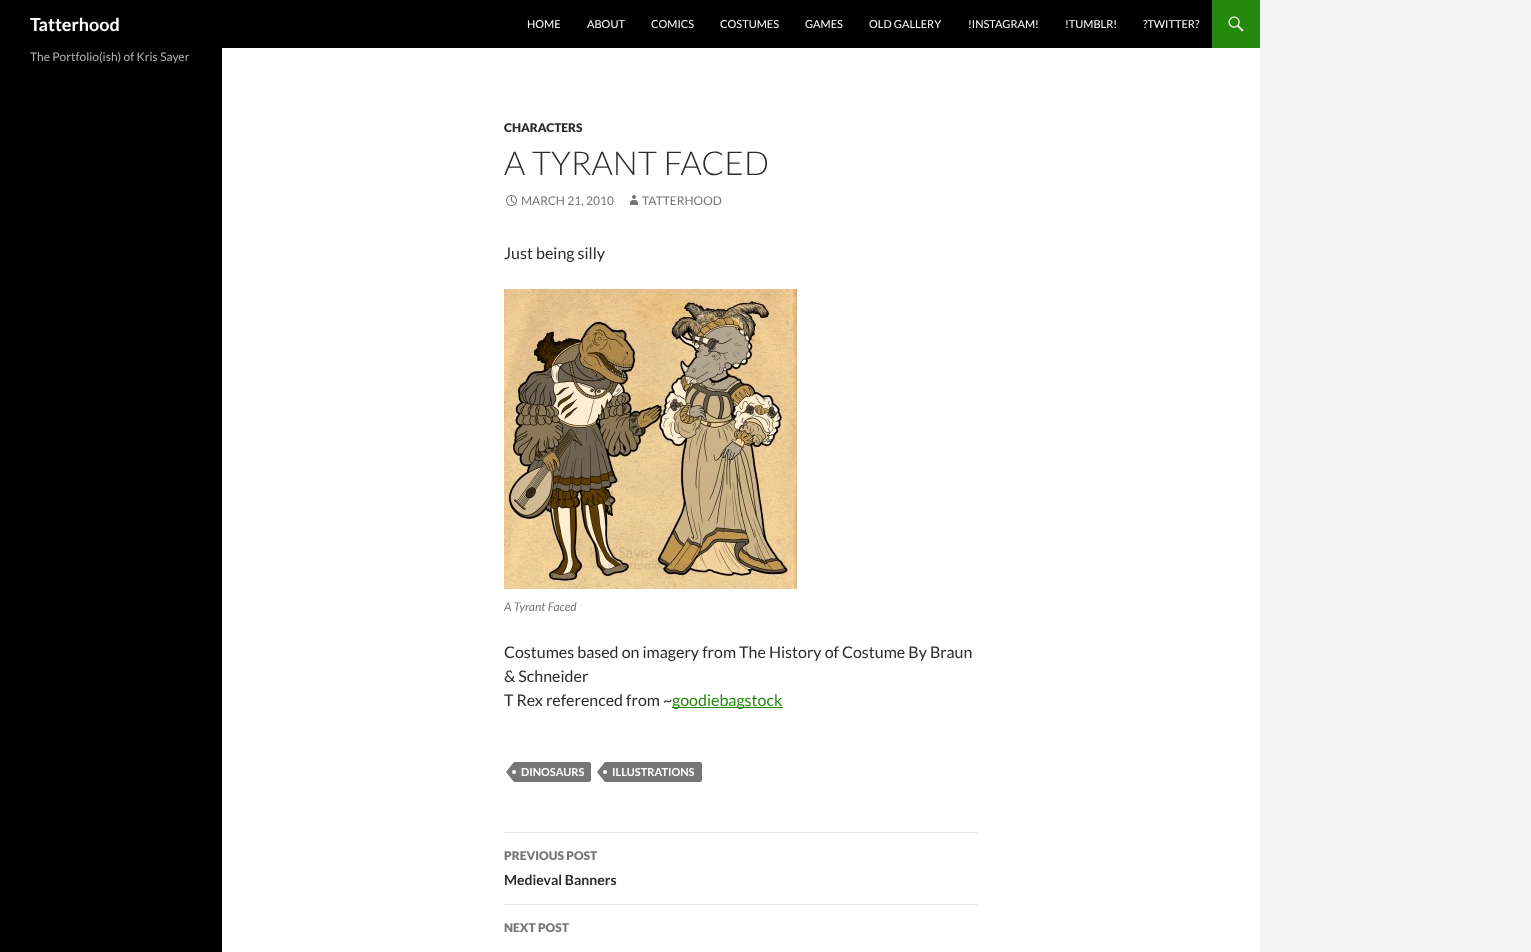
<!DOCTYPE html>
<meta charset="utf-8">
<style>body { margin: 0 } canvas { display: block }</style>
<canvas id="canvas" width="1531" height="952"></canvas>
<img id="img1" src="images/1.png" hidden>
<img id="img2" src="images/2.png" hidden>
<img id="img3" src="images/3.png" hidden>
<img id="img4" src="images/4.png" hidden>
<script>
window.onload = function () {
    const canvas = document.getElementById('canvas');
    const context = canvas.getContext('2d');
    context.miterLimit = 4;
    context.fontKerning = 'normal';

    context.fillStyle = 'rgb(245, 245, 245)';
    context.fillRect(0, 0, 1531, 952);
    context.fillStyle = 'rgb(255, 255, 255)';
    context.fillRect(222, 48, 1038, 904);
    context.fillStyle = 'rgb(0, 0, 0)';
    context.fillRect(0, 0, 1212, 48);
    context.fillStyle = 'rgb(36, 137, 13)';
    context.fillRect(1212, 0, 48, 48);
    context.drawImage(document.getElementById('img1'), 1228, 16, 16, 16);
    context.fillStyle = 'rgb(0, 0, 0)';
    context.fillRect(0, 48, 222, 904);
    context.drawImage(document.getElementById('img2'), 506, 195, 11, 11);
    context.drawImage(document.getElementById('img3'), 630, 195, 8, 10);
    context.drawImage(document.getElementById('img4'), 504, 289, 293, 300);
    context.fillStyle = 'rgb(36, 137, 13)';
    context.fillRect(672, 707, 111, 1);
    context.fillStyle = 'rgb(118, 118, 118)';
    context.beginPath();
    context.roundRect(514, 762, 77, 20, [0, 2, 2, 0]);
    context.fill();
    context.beginPath();
    context.moveTo(514, 762);
    context.lineTo(514, 782);
    context.lineTo(506, 772);
    context.closePath();
    context.fill();
    context.fillStyle = 'rgb(255, 255, 255)';
    context.beginPath();
    context.arc(514, 772, 2, 0, 2 * Math.PI);
    context.fill();
    context.fillStyle = 'rgb(118, 118, 118)';
    context.beginPath();
    context.roundRect(605, 762, 97, 20, [0, 2, 2, 0]);
    context.fill();
    context.beginPath();
    context.moveTo(605, 762);
    context.lineTo(605, 782);
    context.lineTo(597, 772);
    context.closePath();
    context.fill();
    context.fillStyle = 'rgb(255, 255, 255)';
    context.beginPath();
    context.arc(605, 772, 2, 0, 2 * Math.PI);
    context.fill();
    context.fillStyle = 'rgb(230, 230, 230)';
    context.fillRect(504, 832, 474, 1);
    context.fillRect(504, 904, 474, 1);
    context.font = 'bold 18px Lato';
    context.fillStyle = 'rgb(255, 255, 255)';
    context.fillText('Tatterhood', 30, 31);
    context.font = '11px Lato';
    context.fillText('HOME', 527, 28);
    context.fillText('ABOUT', 587, 28);
    context.fillText('COMICS', 651, 28);
    context.fillText('COSTUMES', 720, 28);
    context.fillText('GAMES', 805, 28);
    context.fillText('OLD GALLERY', 869, 28);
    context.fillText('!INSTAGRAM!', 968, 28);
    context.fillText('!TUMBLR!', 1065, 28);
    context.fillText('?TWITTER?', 1143, 28);
    context.font = '12px Lato';
    context.fillStyle = 'rgb(179, 179, 179)';
    context.fillText('The Portfolio(ish) of Kris Sayer', 30, 61);
    context.font = '900 12px Lato';
    context.fillStyle = 'rgb(43, 43, 43)';
    context.fillText('CHARACTERS', 504, 132);
    context.font = '300 33px Lato';
    context.fillText('A TYRANT FACED', 504, 175);
    context.font = '12px Lato';
    context.fillStyle = 'rgb(118, 118, 118)';
    context.fillText('MARCH 21, 2010', 521, 205);
    context.fillText('TATTERHOOD', 642, 205);
    context.font = '16px Lato';
    context.fillStyle = 'rgb(43, 43, 43)';
    context.fillText('Just being silly', 504, 259);
    context.font = 'italic 12px Lato';
    context.fillStyle = 'rgb(118, 118, 118)';
    context.fillText('A Tyrant Faced', 504, 611);
    context.font = '16px Lato';
    context.fillStyle = 'rgb(43, 43, 43)';
    context.fillText('Costumes based on imagery from The History of Costume By Braun', 504, 658);
    context.fillText('& Schneider', 504, 682);
    context.fillText('T Rex referenced from ~', 504, 706);
    context.fillStyle = 'rgb(36, 137, 13)';
    context.fillText('goodiebagstock', 672, 706);
    context.font = 'bold 11px Lato';
    context.fillStyle = 'rgb(255, 255, 255)';
    context.fillText('DINOSAURS', 521, 776);
    context.fillText('ILLUSTRATIONS', 612, 776);
    context.font = '900 12px Lato';
    context.fillStyle = 'rgb(118, 118, 118)';
    context.fillText('PREVIOUS POST', 504, 860);
    context.font = 'bold 14px Lato';
    context.fillStyle = 'rgb(43, 43, 43)';
    context.fillText('Medieval Banners', 504, 885);
    context.font = '900 12px Lato';
    context.fillStyle = 'rgb(118, 118, 118)';
    context.fillText('NEXT POST', 504, 932);
};
</script>
